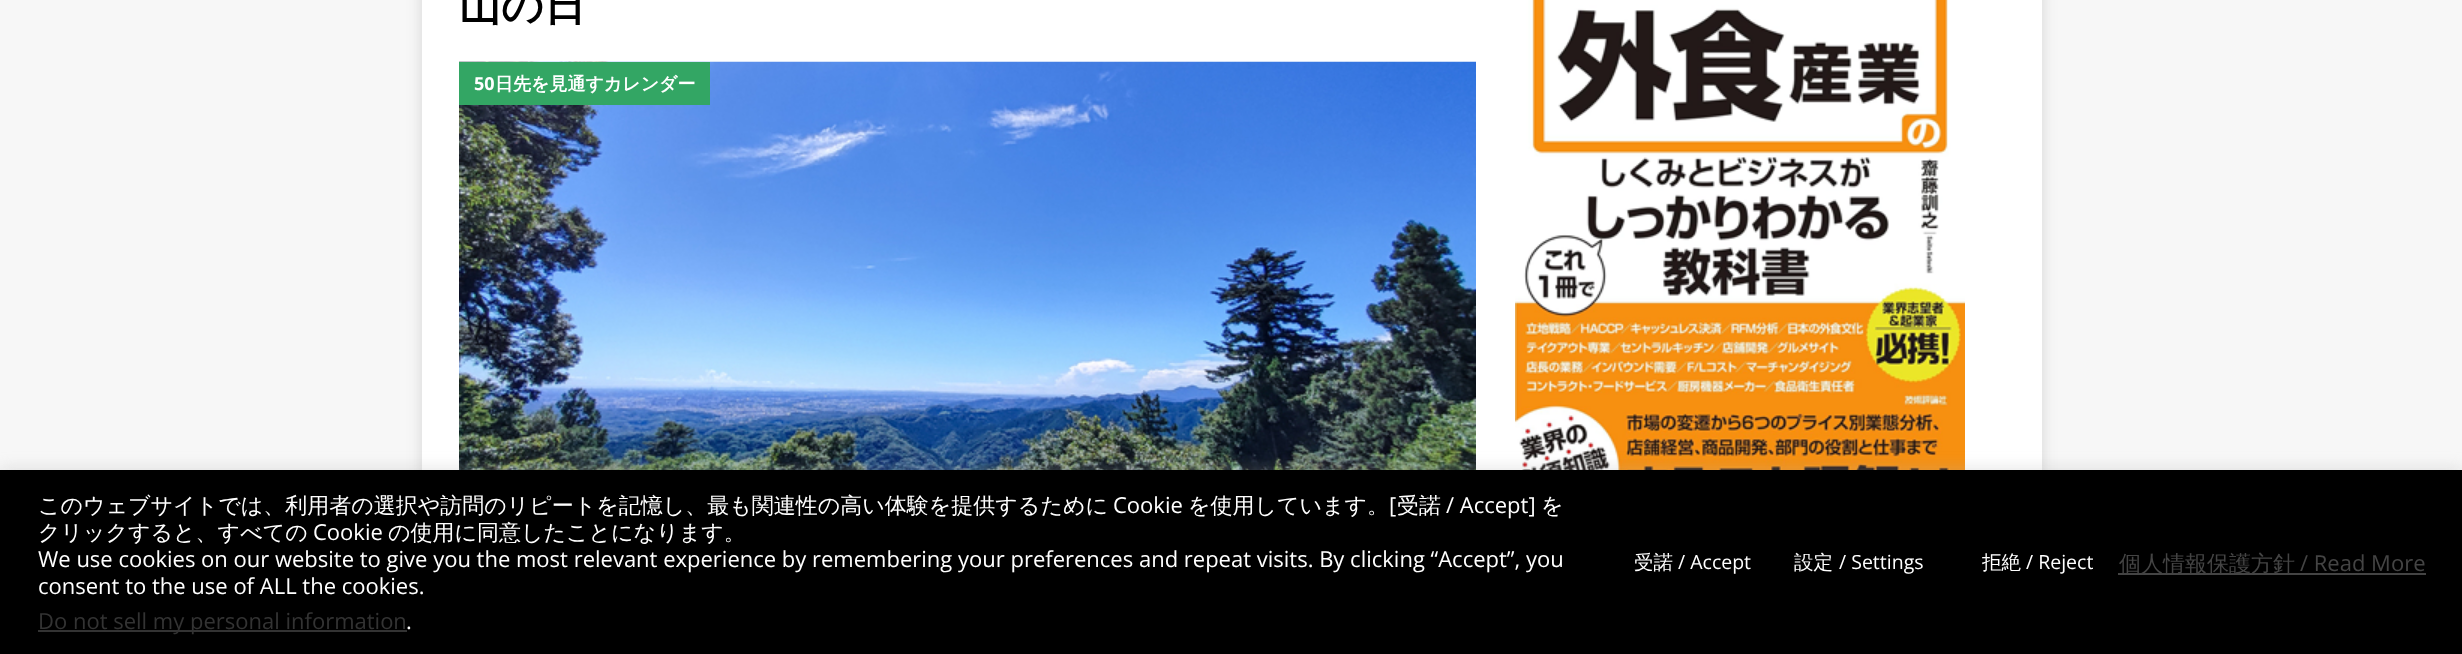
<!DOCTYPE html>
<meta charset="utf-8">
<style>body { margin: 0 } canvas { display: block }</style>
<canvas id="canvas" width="2462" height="654"></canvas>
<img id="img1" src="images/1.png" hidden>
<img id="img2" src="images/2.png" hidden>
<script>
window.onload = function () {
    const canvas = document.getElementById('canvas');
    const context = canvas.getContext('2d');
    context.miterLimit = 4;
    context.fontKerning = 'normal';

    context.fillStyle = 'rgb(247, 247, 247)';
    context.fillRect(0, 0, 2462, 654);
    context.fillStyle = 'rgba(50, 50, 50, 0.17)';
    context.filter = 'blur(7.5px)';
    context.beginPath();
    context.rect(422, -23, 1620, 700);
    context.fill();
    context.filter = 'none';
    context.fillStyle = 'rgb(255, 255, 255)';
    context.fillRect(422, 0, 1620, 470);
    context.drawImage(document.getElementById('img1'), 459, 61, 1017, 409);
    context.fillStyle = 'rgb(51, 166, 100)';
    context.fillRect(459, 62, 251, 43);
    context.drawImage(document.getElementById('img2'), 1515, 0, 450, 470);
    context.fillStyle = 'rgba(172, 171, 171, 0.3)';
    context.filter = 'blur(7.5px)';
    context.beginPath();
    context.rect(0, 468, 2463, 185);
    context.fill();
    context.filter = 'none';
    context.fillStyle = 'rgb(0, 0, 0)';
    context.fillRect(0, 470, 2462, 184);
    context.fillStyle = 'rgb(51, 51, 51)';
    context.fillRect(38, 630, 369, 2);
    context.fillStyle = 'rgb(68, 68, 68)';
    context.fillRect(2118, 573, 308, 2);
    context.font = 'bold 42px WenQuanYi Zen Hei';
    context.fillStyle = 'rgb(0, 0, 0)';
    context.fillText('山の日', 459, 20);
    context.font = 'bold 18px Open Sans';
    context.fillStyle = 'rgb(255, 255, 255)';
    context.fillText('50', 474, 90);
    context.font = 'bold 18px WenQuanYi Zen Hei';
    context.fillText('日先を見通すカレンダー', 495, 90);
    context.font = '500 22px WenQuanYi Zen Hei';
    context.fillText('このウェブサイトでは、利用者の選択や訪問のリピートを記憶し、最も関連性の高い体験を提供するために', 38, 513);
    context.font = '22px Open Sans';
    context.fillText('Cookie', 1113, 513);
    context.font = '500 22px WenQuanYi Zen Hei';
    context.fillText('を使用しています。', 1188, 513);
    context.font = '22px Open Sans';
    context.fillText('[', 1389, 513);
    context.font = '500 22px WenQuanYi Zen Hei';
    context.fillText('受諾', 1397, 513);
    context.font = '22px Open Sans';
    context.fillText('/ Accept]', 1446, 513);
    context.font = '500 22px WenQuanYi Zen Hei';
    context.fillText('を', 1541, 513);
    context.fillText('クリックすると、すべての', 38, 540);
    context.font = '22px Open Sans';
    context.fillText('Cookie', 313, 540);
    context.font = '500 22px WenQuanYi Zen Hei';
    context.fillText('の使用に同意したことになります。', 388, 540);
    context.font = '22px Open Sans';
    context.fillText('We use cookies on our website to give you the most relevant experience by remembering your preferences and repeat visits. By clicking “Accept”, you', 38, 567);
    context.fillText('consent to the use of ALL the cookies.', 38, 594);
    context.fillStyle = 'rgb(51, 51, 51)';
    context.fillText('Do not sell my personal information', 38, 629);
    context.fillStyle = 'rgb(255, 255, 255)';
    context.fillText('.', 406, 629);
    context.font = '500 19.5px WenQuanYi Zen Hei';
    context.fillText('受諾', 1634, 569);
    context.font = '19.5px Open Sans';
    context.fillText('/ Accept', 1678, 569);
    context.font = '500 19.5px WenQuanYi Zen Hei';
    context.fillText('設定', 1794, 569);
    context.font = '19.5px Open Sans';
    context.fillText('/ Settings', 1839, 569);
    context.font = '500 19.5px WenQuanYi Zen Hei';
    context.fillText('拒絶', 1982, 569);
    context.font = '19.5px Open Sans';
    context.fillText('/ Reject', 2026, 569);
    context.font = '500 22px WenQuanYi Zen Hei';
    context.fillStyle = 'rgb(68, 68, 68)';
    context.fillText('個人情報保護方針', 2119, 571);
    context.font = '22px Open Sans';
    context.fillText('/ Read More', 2300, 571);
};
</script>
